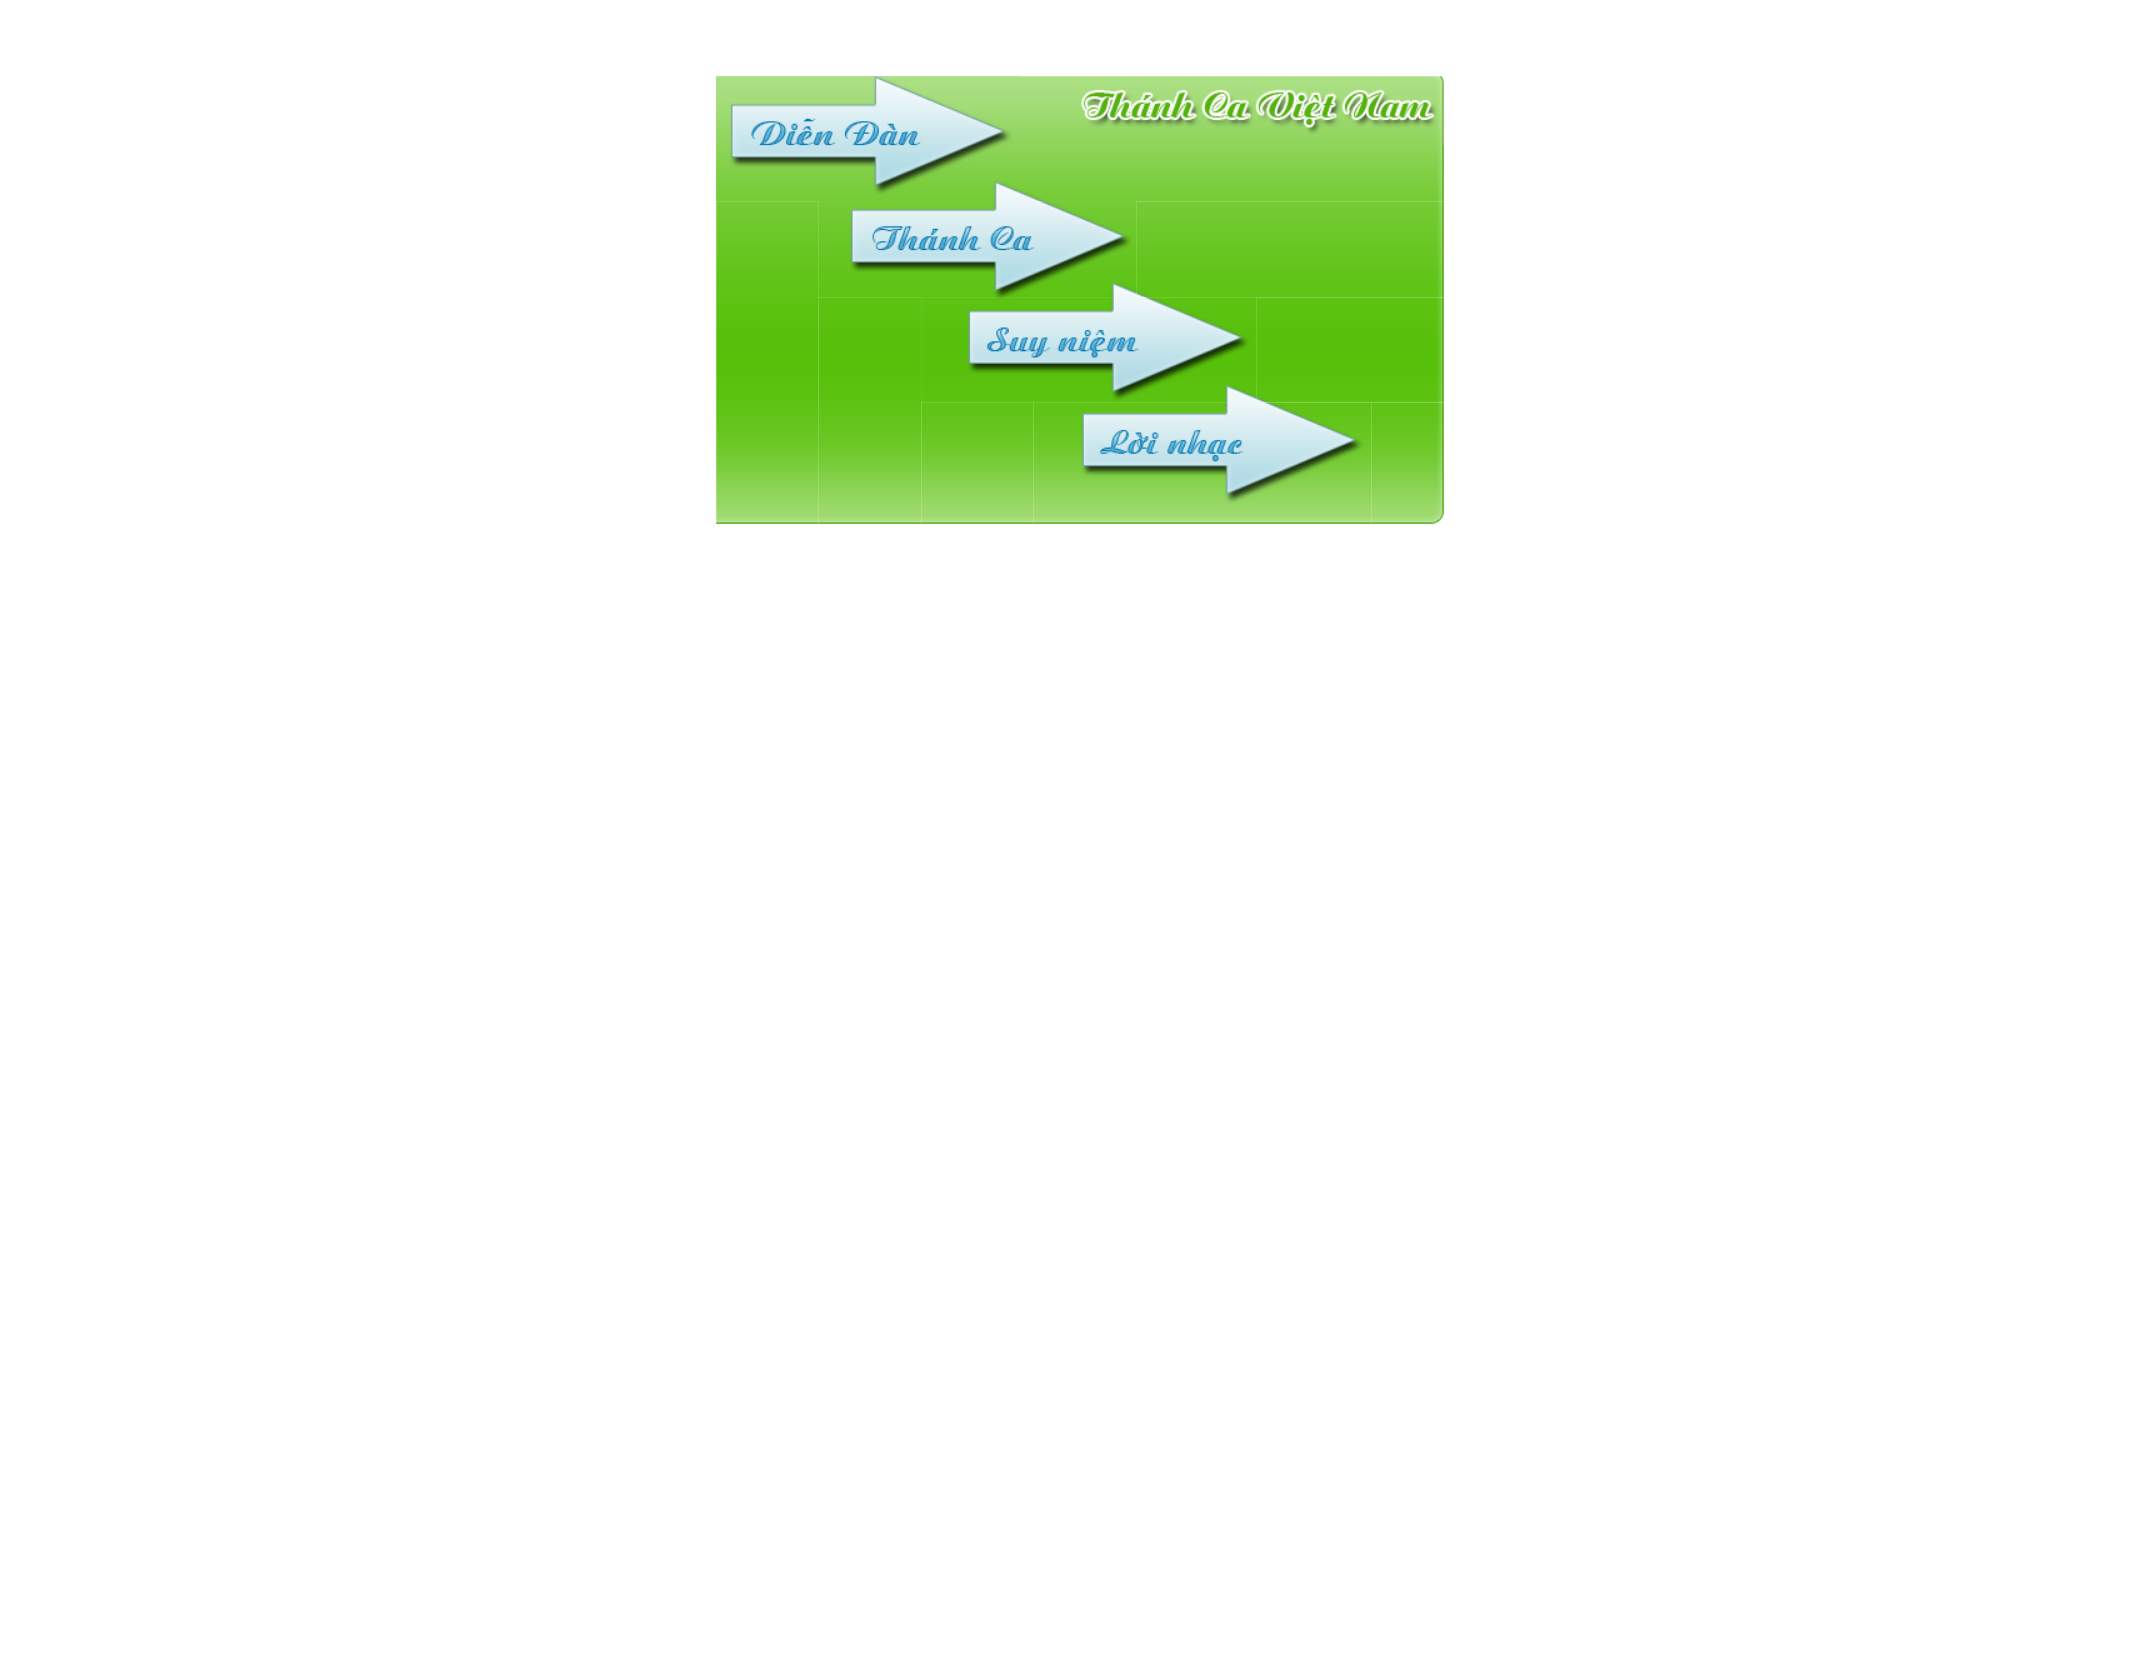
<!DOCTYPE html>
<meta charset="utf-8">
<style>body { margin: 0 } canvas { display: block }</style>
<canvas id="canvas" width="2140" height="1669"></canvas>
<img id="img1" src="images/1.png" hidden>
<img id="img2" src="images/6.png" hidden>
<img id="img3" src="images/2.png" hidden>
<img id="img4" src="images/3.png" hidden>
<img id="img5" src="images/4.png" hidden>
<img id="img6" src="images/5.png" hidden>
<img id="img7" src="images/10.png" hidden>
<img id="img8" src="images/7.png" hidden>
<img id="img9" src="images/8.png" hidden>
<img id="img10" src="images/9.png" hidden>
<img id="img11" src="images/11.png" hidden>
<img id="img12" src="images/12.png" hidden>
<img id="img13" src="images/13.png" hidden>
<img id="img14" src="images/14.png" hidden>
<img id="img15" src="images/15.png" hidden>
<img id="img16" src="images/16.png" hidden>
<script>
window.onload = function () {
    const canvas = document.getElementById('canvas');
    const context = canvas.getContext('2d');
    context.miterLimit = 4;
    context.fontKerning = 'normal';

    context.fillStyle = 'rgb(255, 255, 255)';
    context.fillRect(0, 0, 2140, 1669);
    context.drawImage(document.getElementById('img1'), 716, 76, 304, 126);
    context.drawImage(document.getElementById('img2'), 818, 201, 319, 97);
    context.drawImage(document.getElementById('img3'), 716, 76, 304, 126);
    context.drawImage(document.getElementById('img4'), 1020, 76, 424, 69);
    context.fillStyle = 'rgba(255, 255, 255, 0.25)';
    context.fillRect(1443, 78, 1, 67);
    context.drawImage(document.getElementById('img5'), 1020, 145, 424, 57);
    context.drawImage(document.getElementById('img6'), 716, 201, 103, 323);
    context.drawImage(document.getElementById('img7'), 921, 297, 336, 106);
    context.drawImage(document.getElementById('img8'), 818, 201, 319, 97);
    context.drawImage(document.getElementById('img9'), 1136, 201, 308, 97);
    context.drawImage(document.getElementById('img10'), 818, 297, 104, 227);
    context.drawImage(document.getElementById('img11'), 921, 297, 336, 106);
    context.drawImage(document.getElementById('img12'), 1256, 297, 188, 106);
    context.drawImage(document.getElementById('img13'), 921, 402, 113, 122);
    context.drawImage(document.getElementById('img14'), 1033, 402, 339, 103);
    context.drawImage(document.getElementById('img15'), 1371, 402, 73, 122);
    context.drawImage(document.getElementById('img16'), 1033, 505, 339, 19);
};
</script>
